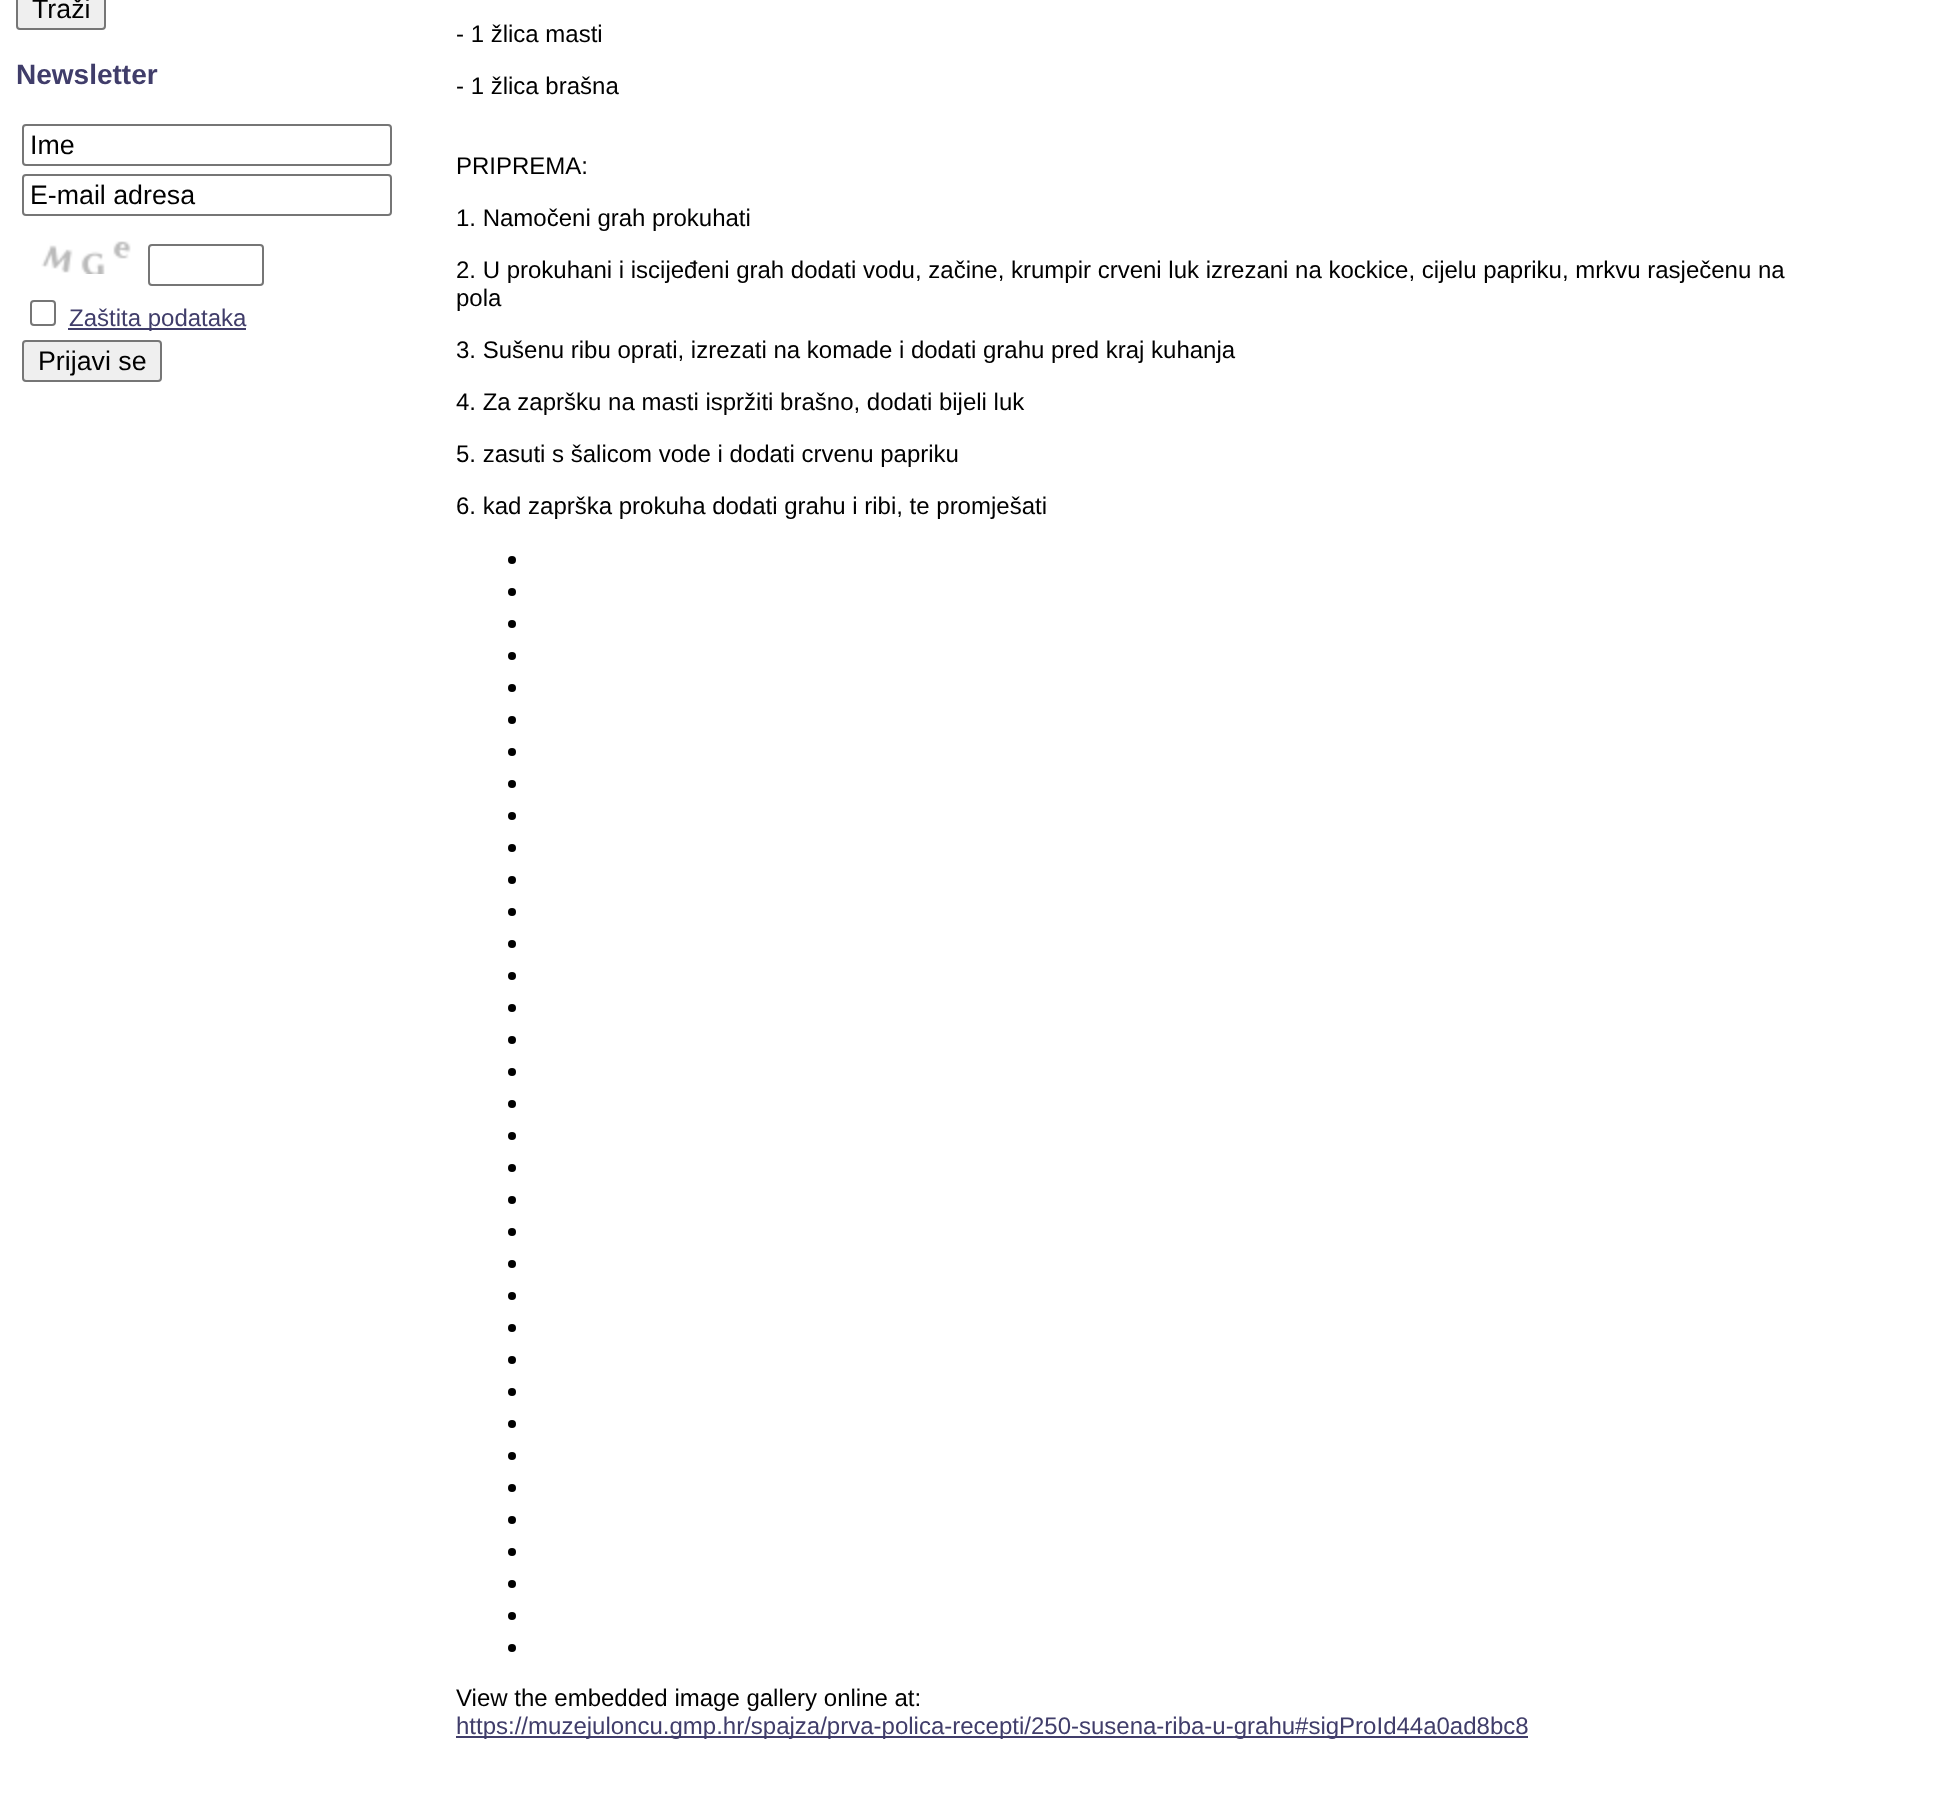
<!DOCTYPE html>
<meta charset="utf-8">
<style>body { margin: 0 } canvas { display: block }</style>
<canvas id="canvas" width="1941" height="1816"></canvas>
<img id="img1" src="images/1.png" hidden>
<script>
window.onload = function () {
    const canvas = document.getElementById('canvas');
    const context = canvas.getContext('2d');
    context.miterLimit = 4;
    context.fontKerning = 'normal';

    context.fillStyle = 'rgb(255, 255, 255)';
    context.fillRect(0, 0, 1941, 1816);
    context.fillStyle = 'rgb(239, 239, 239)';
    context.beginPath();
    context.roundRect(17, -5, 88, 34, 3);
    context.fill();
    context.strokeStyle = 'rgb(118, 118, 118)';
    context.lineWidth = 2;
    context.stroke();
    context.beginPath();
    context.roundRect(23, 125, 368, 40, 3);
    context.stroke();
    context.beginPath();
    context.roundRect(23, 175, 368, 40, 3);
    context.stroke();
    context.drawImage(document.getElementById('img1'), 41, 241, 90, 33);
    context.beginPath();
    context.roundRect(149, 245, 114, 40, 3);
    context.stroke();
    context.beginPath();
    context.roundRect(31, 301, 24, 24, 3);
    context.stroke();
    context.fillStyle = 'rgb(64, 61, 106)';
    context.fillRect(68, 328, 178, 2);
    context.fillStyle = 'rgb(239, 239, 239)';
    context.beginPath();
    context.roundRect(23, 341, 138, 40, 3);
    context.fill();
    context.stroke();
    context.fillStyle = 'rgb(0, 0, 0)';
    context.beginPath();
    context.arc(512, 560, 4, 0, 2 * Math.PI);
    context.fill();
    context.beginPath();
    context.arc(512, 592, 4, 0, 2 * Math.PI);
    context.fill();
    context.beginPath();
    context.arc(512, 624, 4, 0, 2 * Math.PI);
    context.fill();
    context.beginPath();
    context.arc(512, 656, 4, 0, 2 * Math.PI);
    context.fill();
    context.beginPath();
    context.arc(512, 688, 4, 0, 2 * Math.PI);
    context.fill();
    context.beginPath();
    context.arc(512, 720, 4, 0, 2 * Math.PI);
    context.fill();
    context.beginPath();
    context.arc(512, 752, 4, 0, 2 * Math.PI);
    context.fill();
    context.beginPath();
    context.arc(512, 784, 4, 0, 2 * Math.PI);
    context.fill();
    context.beginPath();
    context.arc(512, 816, 4, 0, 2 * Math.PI);
    context.fill();
    context.beginPath();
    context.arc(512, 848, 4, 0, 2 * Math.PI);
    context.fill();
    context.beginPath();
    context.arc(512, 880, 4, 0, 2 * Math.PI);
    context.fill();
    context.beginPath();
    context.arc(512, 912, 4, 0, 2 * Math.PI);
    context.fill();
    context.beginPath();
    context.arc(512, 944, 4, 0, 2 * Math.PI);
    context.fill();
    context.beginPath();
    context.arc(512, 976, 4, 0, 2 * Math.PI);
    context.fill();
    context.beginPath();
    context.arc(512, 1008, 4, 0, 2 * Math.PI);
    context.fill();
    context.beginPath();
    context.arc(512, 1040, 4, 0, 2 * Math.PI);
    context.fill();
    context.beginPath();
    context.arc(512, 1072, 4, 0, 2 * Math.PI);
    context.fill();
    context.beginPath();
    context.arc(512, 1104, 4, 0, 2 * Math.PI);
    context.fill();
    context.beginPath();
    context.arc(512, 1136, 4, 0, 2 * Math.PI);
    context.fill();
    context.beginPath();
    context.arc(512, 1168, 4, 0, 2 * Math.PI);
    context.fill();
    context.beginPath();
    context.arc(512, 1200, 4, 0, 2 * Math.PI);
    context.fill();
    context.beginPath();
    context.arc(512, 1232, 4, 0, 2 * Math.PI);
    context.fill();
    context.beginPath();
    context.arc(512, 1264, 4, 0, 2 * Math.PI);
    context.fill();
    context.beginPath();
    context.arc(512, 1296, 4, 0, 2 * Math.PI);
    context.fill();
    context.beginPath();
    context.arc(512, 1328, 4, 0, 2 * Math.PI);
    context.fill();
    context.beginPath();
    context.arc(512, 1360, 4, 0, 2 * Math.PI);
    context.fill();
    context.beginPath();
    context.arc(512, 1392, 4, 0, 2 * Math.PI);
    context.fill();
    context.beginPath();
    context.arc(512, 1424, 4, 0, 2 * Math.PI);
    context.fill();
    context.beginPath();
    context.arc(512, 1456, 4, 0, 2 * Math.PI);
    context.fill();
    context.beginPath();
    context.arc(512, 1488, 4, 0, 2 * Math.PI);
    context.fill();
    context.beginPath();
    context.arc(512, 1520, 4, 0, 2 * Math.PI);
    context.fill();
    context.beginPath();
    context.arc(512, 1552, 4, 0, 2 * Math.PI);
    context.fill();
    context.beginPath();
    context.arc(512, 1584, 4, 0, 2 * Math.PI);
    context.fill();
    context.beginPath();
    context.arc(512, 1616, 4, 0, 2 * Math.PI);
    context.fill();
    context.beginPath();
    context.arc(512, 1648, 4, 0, 2 * Math.PI);
    context.fill();
    context.fillStyle = 'rgb(64, 61, 106)';
    context.fillRect(456, 1736, 1072, 2);
    context.font = '26.75px Liberation Sans';
    context.fillStyle = 'rgb(0, 0, 0)';
    context.fillText('Traži', 32, 18);
    context.font = 'bold 28px Liberation Sans';
    context.fillStyle = 'rgb(64, 61, 106)';
    context.fillText('Newsletter', 16, 84);
    context.font = '26.75px Liberation Sans';
    context.fillStyle = 'rgb(0, 0, 0)';
    context.fillText('Ime', 30, 154);
    context.fillText('E-mail adresa', 30, 204);
    context.font = '24px Liberation Sans';
    context.fillStyle = 'rgb(64, 61, 106)';
    context.fillText('Zaštita podataka', 69, 326);
    context.font = '26.75px Liberation Sans';
    context.fillStyle = 'rgb(0, 0, 0)';
    context.fillText('Prijavi se', 38, 370);
    context.font = '24px Liberation Sans';
    context.fillText('- 1 žlica masti', 456, 42);
    context.fillText('- 1 žlica brašna', 456, 94);
    context.fillText('PRIPREMA:', 456, 174);
    context.fillText('1. Namočeni grah prokuhati', 456, 226);
    context.fillText('2. U prokuhani i iscijeđeni grah dodati vodu, začine, krumpir crveni luk izrezani na kockice, cijelu papriku, mrkvu rasječenu na', 456, 278);
    context.fillText('pola', 456, 306);
    context.fillText('3. Sušenu ribu oprati, izrezati na komade i dodati grahu pred kraj kuhanja', 456, 358);
    context.fillText('4. Za zapršku na masti ispržiti brašno, dodati bijeli luk', 456, 410);
    context.fillText('5. zasuti s šalicom vode i dodati crvenu papriku', 456, 462);
    context.fillText('6. kad zaprška prokuha dodati grahu i ribi, te promješati', 456, 514);
    context.fillText('View the embedded image gallery online at:', 456, 1706);
    context.fillStyle = 'rgb(64, 61, 106)';
    context.fillText('https://muzejuloncu.gmp.hr/spajza/prva-polica-recepti/250-susena-riba-u-grahu#sigProId44a0ad8bc8', 456, 1734);
};
</script>
